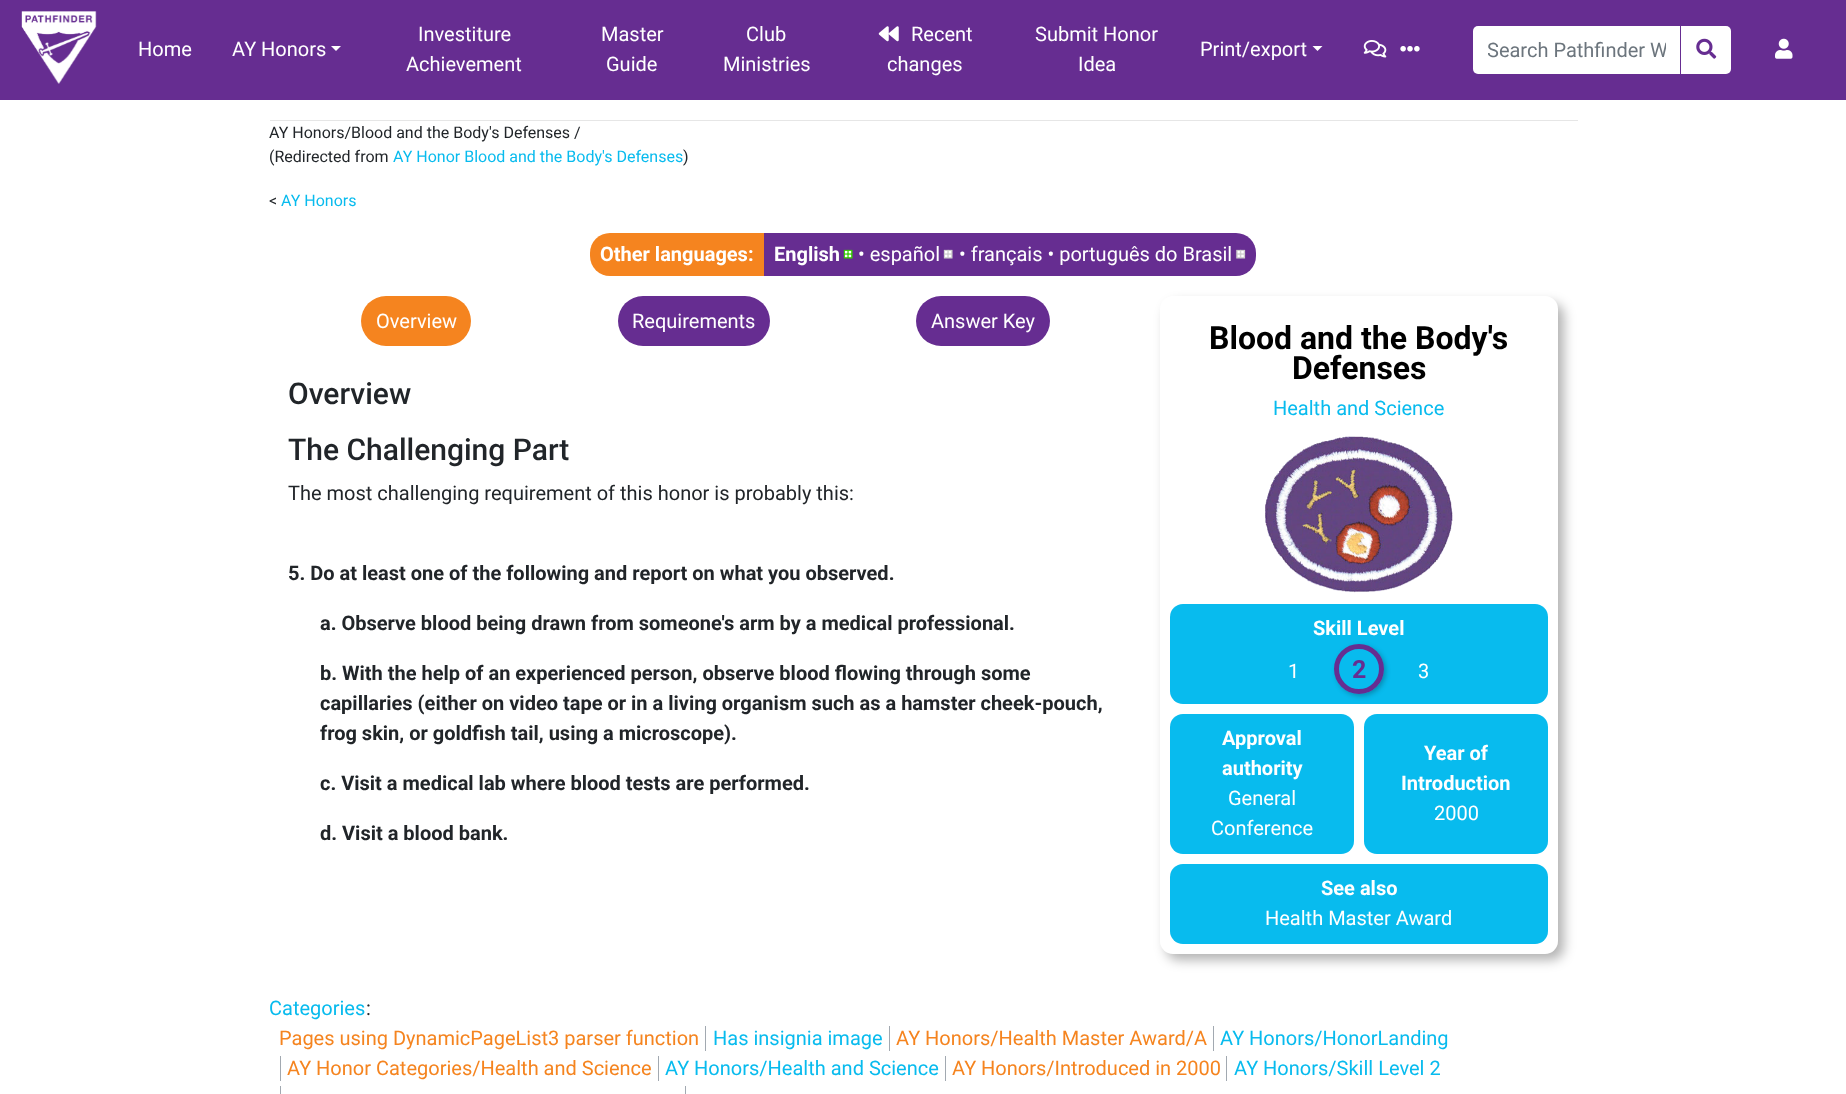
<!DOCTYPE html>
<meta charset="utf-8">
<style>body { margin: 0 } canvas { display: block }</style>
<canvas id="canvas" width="1846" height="1094"></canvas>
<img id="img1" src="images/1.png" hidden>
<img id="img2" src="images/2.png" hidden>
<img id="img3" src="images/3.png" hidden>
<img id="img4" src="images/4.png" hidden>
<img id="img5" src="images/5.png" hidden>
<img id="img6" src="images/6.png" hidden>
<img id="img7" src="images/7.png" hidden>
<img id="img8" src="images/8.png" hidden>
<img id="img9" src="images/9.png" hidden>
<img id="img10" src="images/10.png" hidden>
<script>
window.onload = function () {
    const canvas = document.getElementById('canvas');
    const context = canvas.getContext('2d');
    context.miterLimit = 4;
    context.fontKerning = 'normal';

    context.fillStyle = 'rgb(255, 255, 255)';
    context.fillRect(0, 0, 1846, 1094);
    context.fillStyle = 'rgb(102, 45, 145)';
    context.fillRect(0, 0, 1846, 100);
    context.drawImage(document.getElementById('img1'), 21, 11, 76, 73);
    context.fillStyle = 'rgb(255, 255, 255)';
    context.beginPath();
    context.moveTo(331, 46);
    context.lineTo(341, 46);
    context.lineTo(336, 51);
    context.closePath();
    context.fill();
    context.drawImage(document.getElementById('img2'), 878, 26, 21, 16);
    context.beginPath();
    context.moveTo(1312.5, 46);
    context.lineTo(1322.5, 46);
    context.lineTo(1317.5, 51);
    context.closePath();
    context.fill();
    context.drawImage(document.getElementById('img3'), 1363, 40, 24, 18);
    context.drawImage(document.getElementById('img4'), 1400, 46, 20, 6);
    context.beginPath();
    context.roundRect(1473, 26, 208, 48, [5, 0, 0, 5]);
    context.fill();
    context.beginPath();
    context.roundRect(1680, 26, 51, 48, [0, 5, 5, 0]);
    context.fill();
    context.fillStyle = 'rgb(102, 45, 145)';
    context.fillRect(1680, 26, 1, 48);
    context.drawImage(document.getElementById('img5'), 1696, 38, 21, 21);
    context.drawImage(document.getElementById('img6'), 1775, 38, 18, 21);
    context.fillStyle = 'rgb(230, 230, 230)';
    context.fillRect(270, 120, 1308, 1);
    context.fillStyle = 'rgb(245, 132, 31)';
    context.beginPath();
    context.roundRect(590, 233, 174, 43, [20, 0, 0, 20]);
    context.fill();
    context.fillStyle = 'rgb(102, 45, 145)';
    context.beginPath();
    context.roundRect(764, 233, 492, 43, [0, 20, 20, 0]);
    context.fill();
    context.drawImage(document.getElementById('img7'), 843, 249, 10, 10);
    context.drawImage(document.getElementById('img8'), 943, 249, 10, 10);
    context.drawImage(document.getElementById('img9'), 1235, 249, 11, 10);
    context.fillStyle = 'rgb(245, 132, 31)';
    context.beginPath();
    context.roundRect(361, 296, 110, 50, 25);
    context.fill();
    context.fillStyle = 'rgb(102, 45, 145)';
    context.beginPath();
    context.roundRect(618, 296, 152, 50, 25);
    context.fill();
    context.beginPath();
    context.roundRect(916, 296, 134, 50, 25);
    context.fill();
    context.fillStyle = 'rgba(0, 0, 0, 0.3)';
    context.filter = 'blur(6px)';
    context.beginPath();
    context.roundRect(1166, 303, 398, 657, 13);
    context.fill();
    context.filter = 'none';
    context.fillStyle = 'rgb(255, 255, 255)';
    context.beginPath();
    context.roundRect(1160, 296, 398, 658, 13);
    context.fill();
    context.drawImage(document.getElementById('img10'), 1265, 436, 188, 157);
    context.fillStyle = 'rgb(8, 187, 238)';
    context.beginPath();
    context.roundRect(1170, 604, 378, 100, 13);
    context.fill();
    context.save();
    context.beginPath();
    context.moveTo(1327, 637);
    context.lineTo(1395, 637);
    context.lineTo(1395, 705);
    context.lineTo(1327, 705);
    context.closePath();
    context.moveTo(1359, 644);
    context.bezierCurveTo(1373, 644, 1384, 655, 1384, 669);
    context.bezierCurveTo(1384, 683, 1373, 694, 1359, 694);
    context.bezierCurveTo(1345, 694, 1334, 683, 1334, 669);
    context.bezierCurveTo(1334, 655, 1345, 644, 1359, 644);
    context.closePath();
    context.clip('evenodd');
    context.fillStyle = 'rgba(0, 0, 0, 0.25)';
    context.filter = 'blur(2.5px)';
    context.beginPath();
    context.roundRect(1336, 646, 50, 50, 25);
    context.fill();
    context.filter = 'none';
    context.restore();
    context.beginPath();
    context.arc(1359, 669, 22.5, 0, 2 * Math.PI);
    context.strokeStyle = 'rgb(102, 45, 145)';
    context.lineWidth = 5;
    context.stroke();
    context.beginPath();
    context.roundRect(1170, 714, 184, 140, 13);
    context.fill();
    context.beginPath();
    context.roundRect(1364, 714, 184, 140, 13);
    context.fill();
    context.beginPath();
    context.roundRect(1170, 864, 378, 80, 13);
    context.fill();
    context.fillStyle = 'rgb(162, 169, 177)';
    context.fillRect(705, 1026, 1, 25);
    context.fillRect(889, 1026, 1, 25);
    context.fillRect(1213, 1026, 1, 25);
    context.fillRect(280, 1056, 1, 25);
    context.fillRect(658, 1056, 1, 25);
    context.fillRect(945, 1056, 1, 25);
    context.fillRect(1226, 1056, 1, 25);
    context.fillRect(280, 1086, 1, 8);
    context.fillRect(685, 1086, 1, 8);
    context.font = '20px Roboto';
    context.fillStyle = 'rgb(255, 255, 255)';
    context.fillText('Home', 138, 56);
    context.fillText('AY Honors', 232, 56);
    context.fillText('Investiture', 418, 41);
    context.fillText('Achievement', 406, 71);
    context.fillText('Master', 601, 41);
    context.fillText('Guide', 606, 71);
    context.fillText('Club', 746, 41);
    context.fillText('Ministries', 723, 71);
    context.fillText('Recent', 911, 41);
    context.fillText('changes', 887, 71);
    context.fillText('Submit Honor', 1035, 41);
    context.fillText('Idea', 1078, 71);
    context.fillText('Print/export', 1200, 56);
    context.save();
    context.beginPath();
    context.rect(1488, 39, 178, 24);
    context.clip();
    context.fillStyle = 'rgb(108, 117, 125)';
    context.fillText('Search Pathfinder W', 1487, 57);
    context.restore();
    context.font = '16px Roboto';
    context.fillStyle = 'rgb(33, 37, 41)';
    context.fillText('AY Honors/Blood and the Body\'s Defenses /', 269, 138);
    context.fillText('(Redirected from', 269, 162);
    context.fillStyle = 'rgb(8, 187, 238)';
    context.fillText('AY Honor Blood and the Body\'s Defenses', 393, 162);
    context.fillStyle = 'rgb(33, 37, 41)';
    context.fillText(')', 683, 162);
    context.fillText('<', 269, 206);
    context.fillStyle = 'rgb(8, 187, 238)';
    context.fillText('AY Honors', 281, 206);
    context.font = 'bold 20px Roboto';
    context.fillStyle = 'rgb(255, 255, 255)';
    context.fillText('Other languages:', 600, 261);
    context.fillText('English', 774, 261);
    context.font = '20px Roboto';
    context.fillText('• español', 858, 261);
    context.fillText('• français • português do Brasil', 959, 261);
    context.fillText('Overview', 376, 328);
    context.fillText('Requirements', 632, 328);
    context.fillText('Answer Key', 931, 328);
    context.font = '500 30px Roboto';
    context.fillStyle = 'rgb(33, 37, 41)';
    context.fillText('Overview', 288, 404);
    context.fillText('The Challenging Part', 288, 460);
    context.font = '20px Roboto';
    context.fillText('The most challenging requirement of this honor is probably this:', 288, 500);
    context.font = 'bold 20px Roboto';
    context.fillText('5. Do at least one of the following and report on what you observed.', 288, 580);
    context.fillText('a. Observe blood being drawn from someone\'s arm by a medical professional.', 320, 630);
    context.fillText('b. With the help of an experienced person, observe blood flowing through some', 320, 680);
    context.fillText('capillaries (either on video tape or in a living organism such as a hamster cheek-pouch,', 320, 710);
    context.fillText('frog skin, or goldfish tail, using a microscope).', 320, 740);
    context.fillText('c. Visit a medical lab where blood tests are performed.', 320, 790);
    context.fillText('d. Visit a blood bank.', 320, 840);
    context.font = 'bold 32px Roboto';
    context.fillStyle = 'rgb(0, 0, 0)';
    context.fillText('Blood and the Body\'s', 1209, 349);
    context.fillText('Defenses', 1292, 379);
    context.font = '20px Roboto';
    context.fillStyle = 'rgb(8, 187, 238)';
    context.fillText('Health and Science', 1273, 415);
    context.font = 'bold 20px Roboto';
    context.fillStyle = 'rgb(255, 255, 255)';
    context.fillText('Skill Level', 1313, 635);
    context.font = '20px Roboto';
    context.fillText('1', 1288, 678);
    context.font = 'bold 25px Roboto';
    context.fillStyle = 'rgb(102, 45, 145)';
    context.fillText('2', 1352, 678);
    context.font = '20px Roboto';
    context.fillStyle = 'rgb(255, 255, 255)';
    context.fillText('3', 1418, 678);
    context.font = 'bold 20px Roboto';
    context.fillText('Approval', 1222, 745);
    context.fillText('authority', 1222, 775);
    context.font = '20px Roboto';
    context.fillText('General', 1228, 805);
    context.fillText('Conference', 1211, 835);
    context.font = 'bold 20px Roboto';
    context.fillText('Year of', 1424, 760);
    context.fillText('Introduction', 1401, 790);
    context.font = '20px Roboto';
    context.fillText('2000', 1434, 820);
    context.font = 'bold 20px Roboto';
    context.fillText('See also', 1321, 895);
    context.font = '20px Roboto';
    context.fillText('Health Master Award', 1265, 925);
    context.fillStyle = 'rgb(8, 187, 238)';
    context.fillText('Categories', 269, 1015);
    context.fillStyle = 'rgb(33, 37, 41)';
    context.fillText(':', 366, 1015);
    context.fillStyle = 'rgb(245, 132, 31)';
    context.fillText('Pages using DynamicPageList3 parser function', 279, 1045);
    context.fillStyle = 'rgb(8, 187, 238)';
    context.fillText('Has insignia image', 713, 1045);
    context.fillStyle = 'rgb(245, 132, 31)';
    context.fillText('AY Honors/Health Master Award/A', 896, 1045);
    context.fillStyle = 'rgb(8, 187, 238)';
    context.fillText('AY Honors/HonorLanding', 1220, 1045);
    context.fillStyle = 'rgb(245, 132, 31)';
    context.fillText('AY Honor Categories/Health and Science', 287, 1075);
    context.fillStyle = 'rgb(8, 187, 238)';
    context.fillText('AY Honors/Health and Science', 665, 1075);
    context.fillStyle = 'rgb(245, 132, 31)';
    context.fillText('AY Honors/Introduced in 2000', 952, 1075);
    context.fillStyle = 'rgb(8, 187, 238)';
    context.fillText('AY Honors/Skill Level 2', 1234, 1075);
};
</script>
